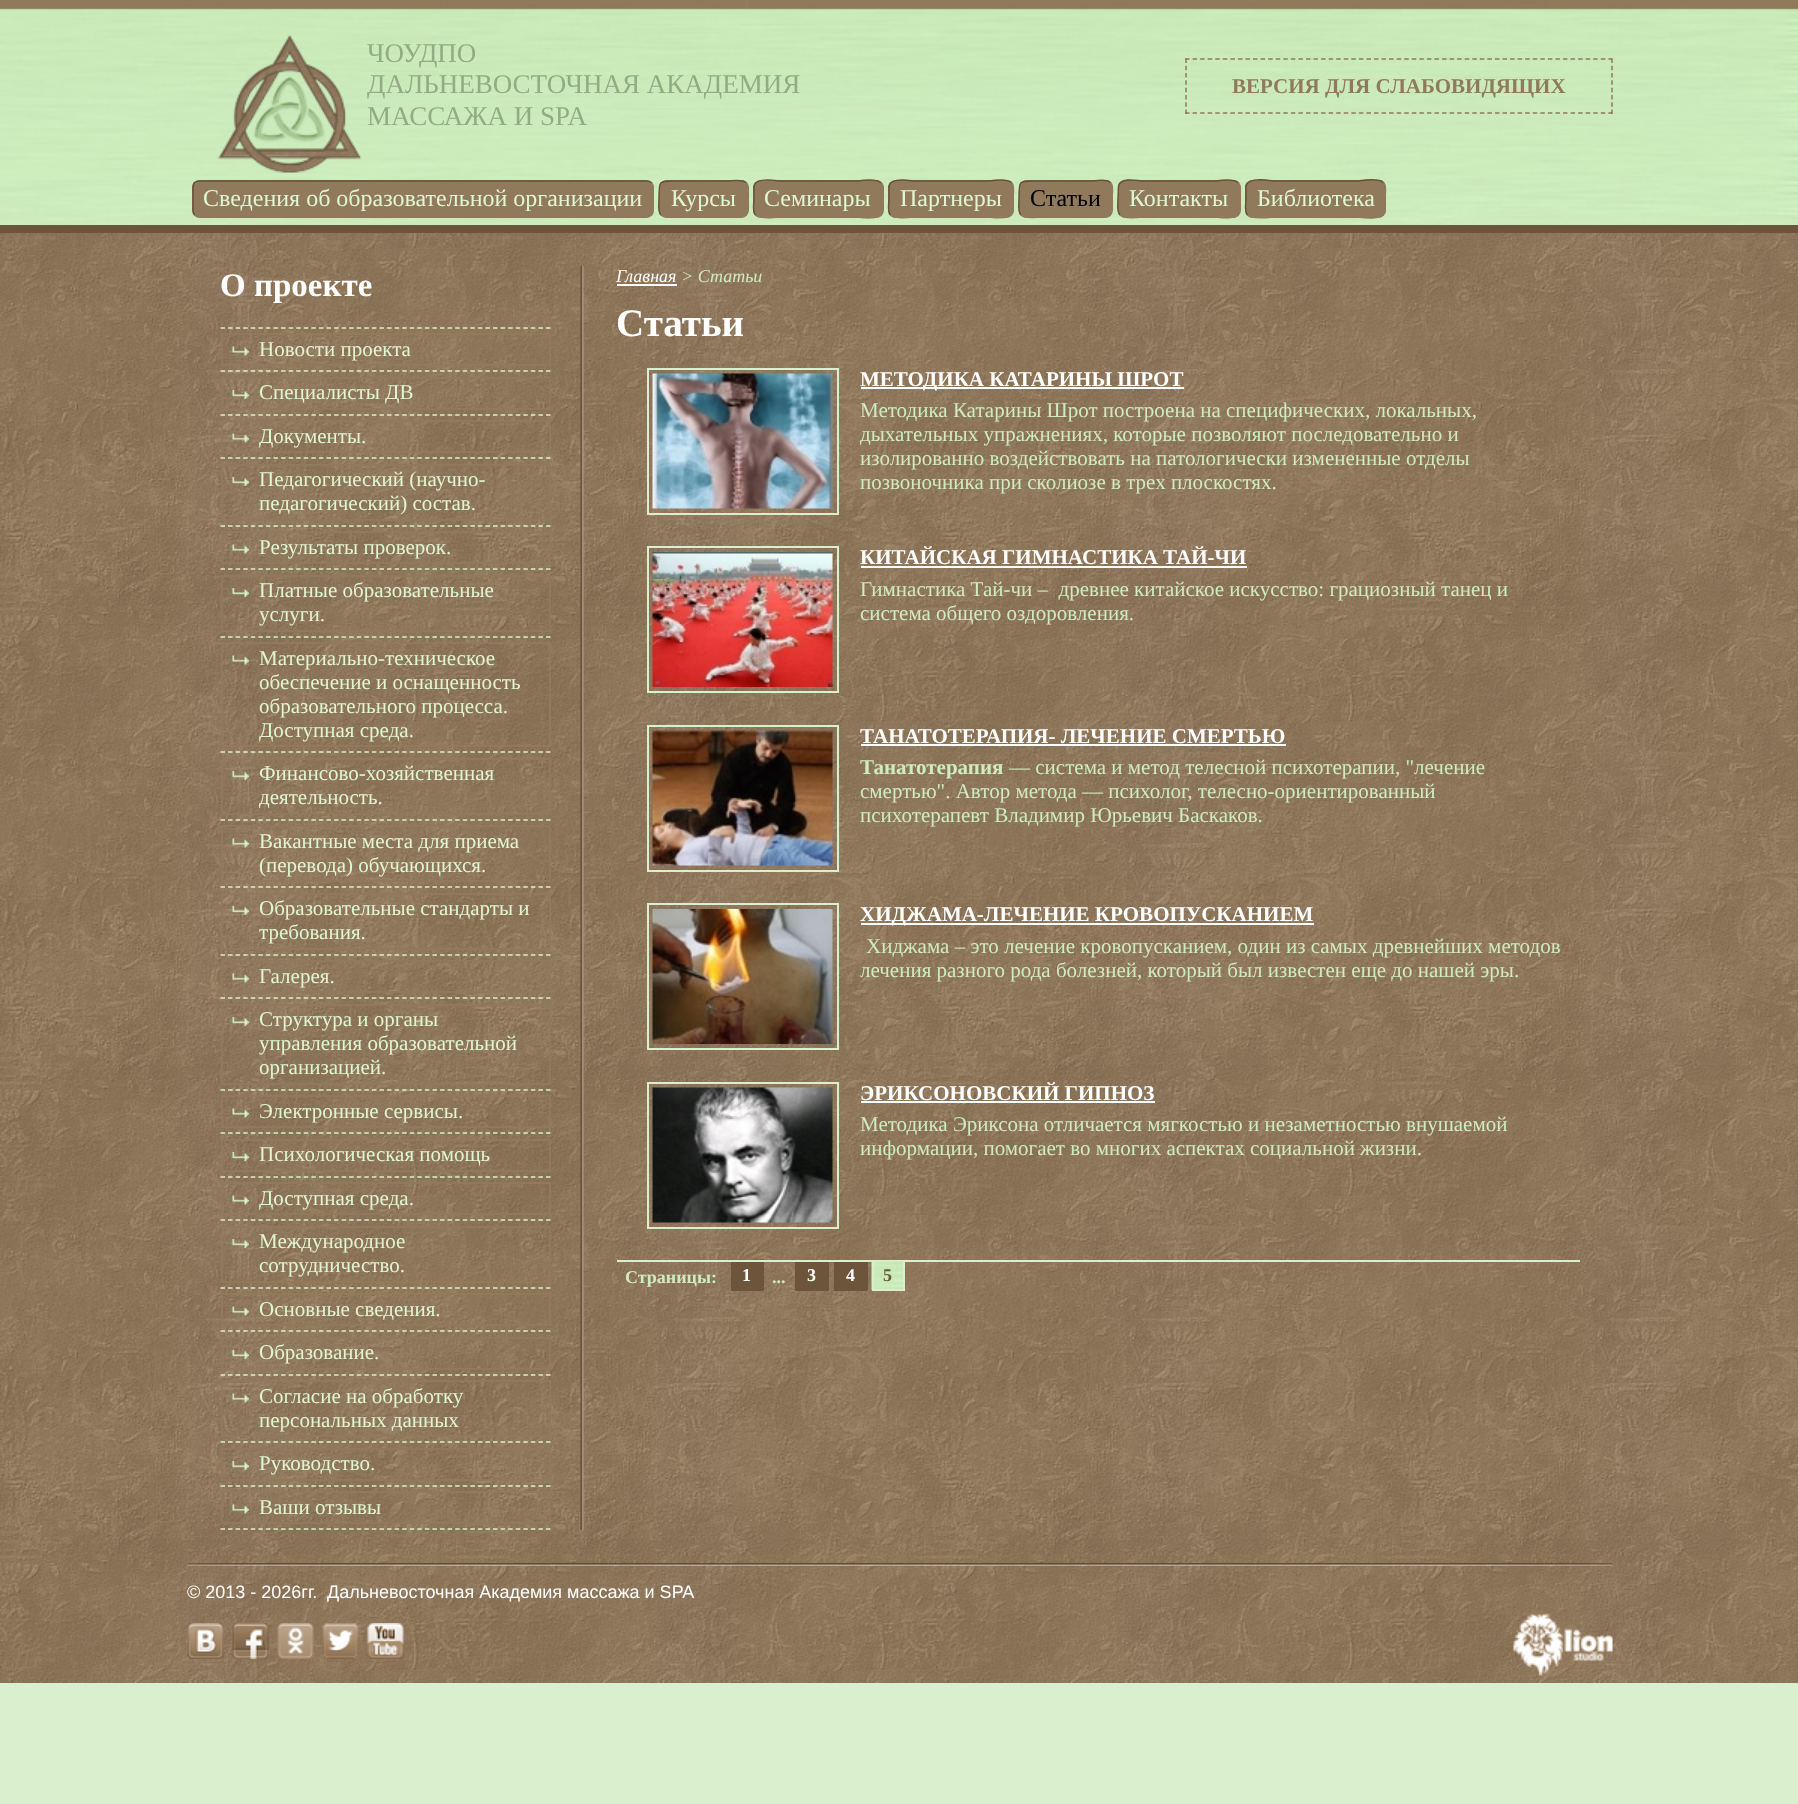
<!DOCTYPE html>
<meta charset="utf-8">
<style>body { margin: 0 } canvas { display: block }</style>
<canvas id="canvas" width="1798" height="1804"></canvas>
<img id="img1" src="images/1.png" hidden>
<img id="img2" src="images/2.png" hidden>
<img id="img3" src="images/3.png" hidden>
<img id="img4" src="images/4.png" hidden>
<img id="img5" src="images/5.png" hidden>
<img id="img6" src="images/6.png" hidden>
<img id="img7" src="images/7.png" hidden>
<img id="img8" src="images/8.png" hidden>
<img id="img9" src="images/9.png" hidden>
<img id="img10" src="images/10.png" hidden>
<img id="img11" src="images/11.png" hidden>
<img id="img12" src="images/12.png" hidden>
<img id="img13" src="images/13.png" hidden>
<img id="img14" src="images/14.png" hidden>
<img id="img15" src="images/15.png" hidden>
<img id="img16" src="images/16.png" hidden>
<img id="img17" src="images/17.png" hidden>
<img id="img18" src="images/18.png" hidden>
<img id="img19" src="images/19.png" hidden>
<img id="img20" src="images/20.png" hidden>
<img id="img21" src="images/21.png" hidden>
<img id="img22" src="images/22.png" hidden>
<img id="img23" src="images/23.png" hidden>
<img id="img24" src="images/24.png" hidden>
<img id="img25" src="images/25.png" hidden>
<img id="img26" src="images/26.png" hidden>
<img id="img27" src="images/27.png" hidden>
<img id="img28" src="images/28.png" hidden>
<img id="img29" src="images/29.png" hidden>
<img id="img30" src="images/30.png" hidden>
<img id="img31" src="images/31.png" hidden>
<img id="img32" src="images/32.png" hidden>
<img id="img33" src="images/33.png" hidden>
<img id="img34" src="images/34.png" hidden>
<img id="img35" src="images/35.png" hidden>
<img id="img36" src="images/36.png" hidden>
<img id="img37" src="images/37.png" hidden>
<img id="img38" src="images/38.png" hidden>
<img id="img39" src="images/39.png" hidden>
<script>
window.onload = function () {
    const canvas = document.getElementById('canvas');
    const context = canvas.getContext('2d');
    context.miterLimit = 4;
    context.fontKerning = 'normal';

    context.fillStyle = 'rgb(218, 239, 205)';
    context.fillRect(0, 0, 1798, 1804);
    context.drawImage(document.getElementById('img1'), 0, 0, 1798, 225);
    context.drawImage(document.getElementById('img2'), 217, 34, 145, 139);
    context.beginPath();
    context.moveTo(1185, 59);
    context.lineTo(1612.5, 59);
    context.strokeStyle = 'rgb(144, 122, 91)';
    context.lineWidth = 1.5;
    context.setLineDash([4.5, 3.06]);
    context.stroke();
    context.beginPath();
    context.moveTo(1612, 58.5);
    context.lineTo(1612, 114);
    context.setLineDash([4.5, 2.79]);
    context.stroke();
    context.beginPath();
    context.moveTo(1185, 113);
    context.lineTo(1612.5, 113);
    context.setLineDash([4.5, 3.06]);
    context.stroke();
    context.beginPath();
    context.moveTo(1186, 58.5);
    context.lineTo(1186, 114);
    context.setLineDash([4.5, 2.79]);
    context.stroke();
    context.fillStyle = 'rgb(144, 122, 91)';
    context.beginPath();
    context.roundRect(192, 180, 462, 38, 8);
    context.fill();
    context.beginPath();
    context.moveTo(651.5, 182.5);
    context.bezierCurveTo(652.5, 184, 653, 185.5, 653, 187.5);
    context.lineTo(653, 210);
    context.bezierCurveTo(653, 212, 652.5, 213.5, 651.5, 215);
    context.bezierCurveTo(650, 216, 648.5, 217, 646.5, 217);
    context.lineTo(199.5, 217);
    context.bezierCurveTo(197.5, 217, 196, 216, 194.5, 215);
    context.setLineDash([]);
    context.stroke();
    context.beginPath();
    context.moveTo(194.5, 215);
    context.bezierCurveTo(193.5, 213.5, 193, 212, 193, 210);
    context.lineTo(193, 187.5);
    context.bezierCurveTo(193, 185.5, 193.5, 184, 194.5, 182.5);
    context.bezierCurveTo(196, 181.5, 197.5, 181, 199.5, 181);
    context.lineTo(646.5, 181);
    context.bezierCurveTo(648.5, 181, 650, 181.5, 651.5, 182.5);
    context.strokeStyle = 'rgb(104, 82, 56)';
    context.stroke();
    context.beginPath();
    context.roundRect(659, 180, 90, 38, 8);
    context.fill();
    context.beginPath();
    context.moveTo(746, 182.5);
    context.bezierCurveTo(749.5, 186, 748, 194.5, 748, 199);
    context.bezierCurveTo(748, 218, 748.5, 217, 728.5, 217);
    context.lineTo(678.5, 217);
    context.bezierCurveTo(675.5, 217, 665, 218.5, 661, 215);
    context.strokeStyle = 'rgb(144, 122, 91)';
    context.stroke();
    context.beginPath();
    context.moveTo(661, 215);
    context.bezierCurveTo(657.5, 211.5, 659, 203, 659, 199);
    context.bezierCurveTo(659, 179.5, 658.5, 181, 678.5, 181);
    context.lineTo(728.5, 181);
    context.bezierCurveTo(731.5, 181, 742, 179, 746, 182.5);
    context.strokeStyle = 'rgb(104, 82, 56)';
    context.stroke();
    context.beginPath();
    context.roundRect(753, 180, 131, 38, 8);
    context.fill();
    context.beginPath();
    context.moveTo(881, 182.5);
    context.bezierCurveTo(884.5, 186, 883, 194.5, 883, 199);
    context.lineTo(882.5, 211.5);
    context.bezierCurveTo(880.5, 221.5, 859.5, 217, 857, 217);
    context.lineTo(780, 217);
    context.bezierCurveTo(779, 217, 761.5, 219.5, 756, 215);
    context.lineTo(755.5, 215);
    context.strokeStyle = 'rgb(144, 122, 91)';
    context.stroke();
    context.beginPath();
    context.moveTo(755.5, 215);
    context.bezierCurveTo(752, 211.5, 754, 203, 754, 199);
    context.lineTo(754, 186);
    context.bezierCurveTo(756, 176, 777, 181, 780, 181);
    context.lineTo(857, 181);
    context.bezierCurveTo(857.5, 181, 875, 178, 880.5, 182.5);
    context.lineTo(881, 182.5);
    context.strokeStyle = 'rgb(104, 82, 56)';
    context.stroke();
    context.beginPath();
    context.roundRect(888, 180, 126, 38, 8);
    context.fill();
    context.beginPath();
    context.moveTo(1011.5, 182.5);
    context.bezierCurveTo(1015, 186, 1013, 194.5, 1013, 199);
    context.lineTo(1013, 211.5);
    context.bezierCurveTo(1011, 221, 991, 217, 988, 217);
    context.lineTo(914, 217);
    context.bezierCurveTo(913.5, 217, 895.5, 219.5, 890.5, 215);
    context.strokeStyle = 'rgb(144, 122, 91)';
    context.stroke();
    context.beginPath();
    context.moveTo(890.5, 215);
    context.bezierCurveTo(887, 211.5, 889, 203, 889, 199);
    context.lineTo(889, 186);
    context.bezierCurveTo(891, 176.5, 911, 181, 914, 181);
    context.lineTo(988, 181);
    context.bezierCurveTo(988.5, 181, 1006.5, 178, 1011.5, 182.5);
    context.strokeStyle = 'rgb(104, 82, 56)';
    context.stroke();
    context.beginPath();
    context.roundRect(1019, 180, 94, 38, 8);
    context.fill();
    context.beginPath();
    context.moveTo(1110.5, 182.5);
    context.bezierCurveTo(1114, 186, 1112, 194.5, 1112, 199);
    context.bezierCurveTo(1112, 218.5, 1113, 217, 1092, 217);
    context.lineTo(1039, 217);
    context.bezierCurveTo(1036.5, 217, 1025.5, 219, 1021, 215);
    context.strokeStyle = 'rgb(144, 122, 91)';
    context.stroke();
    context.beginPath();
    context.moveTo(1021, 215);
    context.bezierCurveTo(1017.5, 211.5, 1019, 203, 1019, 199);
    context.bezierCurveTo(1019, 179, 1018.5, 181, 1039, 181);
    context.lineTo(1092, 181);
    context.bezierCurveTo(1095, 181, 1106, 178.5, 1110.5, 182.5);
    context.strokeStyle = 'rgb(104, 82, 56)';
    context.stroke();
    context.beginPath();
    context.roundRect(1118, 180, 123, 38, 8);
    context.fill();
    context.beginPath();
    context.moveTo(1238, 182.5);
    context.bezierCurveTo(1241.5, 186, 1240, 194.5, 1240, 199);
    context.lineTo(1239.5, 211.5);
    context.bezierCurveTo(1237.5, 221, 1218.5, 217, 1215, 217);
    context.lineTo(1143, 217);
    context.bezierCurveTo(1142.5, 217, 1125, 219.5, 1120, 215);
    context.strokeStyle = 'rgb(144, 122, 91)';
    context.stroke();
    context.beginPath();
    context.moveTo(1120, 215);
    context.bezierCurveTo(1116.5, 211.5, 1118, 203, 1118, 199);
    context.lineTo(1118.5, 186);
    context.bezierCurveTo(1120.5, 176.5, 1139.5, 181, 1143, 181);
    context.lineTo(1215, 181);
    context.bezierCurveTo(1215.5, 181, 1233, 178, 1238, 182.5);
    context.strokeStyle = 'rgb(104, 82, 56)';
    context.stroke();
    context.beginPath();
    context.roundRect(1245, 180, 141, 38, 8);
    context.fill();
    context.beginPath();
    context.moveTo(1383.5, 182.5);
    context.bezierCurveTo(1387, 186, 1385, 194.5, 1385, 199);
    context.lineTo(1385, 211.5);
    context.bezierCurveTo(1383, 221.5, 1359.5, 217, 1357.5, 217);
    context.lineTo(1273.5, 217);
    context.bezierCurveTo(1272, 217, 1253, 220, 1247.5, 215);
    context.strokeStyle = 'rgb(144, 122, 91)';
    context.stroke();
    context.beginPath();
    context.moveTo(1247.5, 215);
    context.bezierCurveTo(1244, 211.5, 1246, 203, 1246, 199);
    context.lineTo(1246, 186);
    context.bezierCurveTo(1248, 176, 1271.5, 181, 1273.5, 181);
    context.lineTo(1357.5, 181);
    context.bezierCurveTo(1359, 181, 1378, 177.5, 1383.5, 182.5);
    context.strokeStyle = 'rgb(104, 82, 56)';
    context.stroke();
    context.drawImage(document.getElementById('img3'), 0, 233, 1798, 1330);
    context.fillStyle = 'rgb(109, 85, 59)';
    context.fillRect(0, 225, 1798, 8);
    context.drawImage(document.getElementById('img4'), 580, 265, 4, 1265);
    context.beginPath();
    context.moveTo(220.5, 328);
    context.lineTo(550.5, 328);
    context.strokeStyle = 'rgb(218, 239, 205)';
    context.setLineDash([4.5, 3.07]);
    context.stroke();
    context.beginPath();
    context.moveTo(220.5, 371);
    context.lineTo(550.5, 371);
    context.stroke();
    context.drawImage(document.getElementById('img5'), 232, 346, 17, 10);
    context.strokeStyle = 'rgb(144, 122, 91)';
    context.lineWidth = 2;
    context.setLineDash([]);
    context.strokeRect(222, 334, 328, 31);
    context.beginPath();
    context.moveTo(220.5, 415);
    context.lineTo(550.5, 415);
    context.strokeStyle = 'rgb(218, 239, 205)';
    context.lineWidth = 1.5;
    context.setLineDash([4.5, 3.07]);
    context.stroke();
    context.drawImage(document.getElementById('img6'), 232, 390, 17, 9);
    context.strokeStyle = 'rgb(144, 122, 91)';
    context.lineWidth = 2;
    context.setLineDash([]);
    context.strokeRect(222, 378, 328, 31);
    context.beginPath();
    context.moveTo(220.5, 458);
    context.lineTo(550.5, 458);
    context.strokeStyle = 'rgb(218, 239, 205)';
    context.lineWidth = 1.5;
    context.setLineDash([4.5, 3.07]);
    context.stroke();
    context.drawImage(document.getElementById('img7'), 232, 433, 17, 10);
    context.strokeStyle = 'rgb(144, 122, 91)';
    context.lineWidth = 2;
    context.setLineDash([]);
    context.strokeRect(222, 421, 328, 31);
    context.beginPath();
    context.moveTo(220.5, 526);
    context.lineTo(550.5, 526);
    context.strokeStyle = 'rgb(218, 239, 205)';
    context.lineWidth = 1.5;
    context.setLineDash([4.5, 3.07]);
    context.stroke();
    context.drawImage(document.getElementById('img8'), 232, 477, 17, 9);
    context.strokeStyle = 'rgb(144, 122, 91)';
    context.lineWidth = 2;
    context.setLineDash([]);
    context.strokeRect(222, 465, 328, 55);
    context.beginPath();
    context.moveTo(220.5, 569);
    context.lineTo(550.5, 569);
    context.strokeStyle = 'rgb(218, 239, 205)';
    context.lineWidth = 1.5;
    context.setLineDash([4.5, 3.07]);
    context.stroke();
    context.drawImage(document.getElementById('img9'), 232, 544, 17, 10);
    context.strokeStyle = 'rgb(144, 122, 91)';
    context.lineWidth = 2;
    context.setLineDash([]);
    context.strokeRect(222, 532, 328, 31);
    context.beginPath();
    context.moveTo(220.5, 637);
    context.lineTo(550.5, 637);
    context.strokeStyle = 'rgb(218, 239, 205)';
    context.lineWidth = 1.5;
    context.setLineDash([4.5, 3.07]);
    context.stroke();
    context.drawImage(document.getElementById('img10'), 232, 588, 17, 9);
    context.strokeStyle = 'rgb(144, 122, 91)';
    context.lineWidth = 2;
    context.setLineDash([]);
    context.strokeRect(222, 576, 328, 55);
    context.beginPath();
    context.moveTo(220.5, 752);
    context.lineTo(550.5, 752);
    context.strokeStyle = 'rgb(218, 239, 205)';
    context.lineWidth = 1.5;
    context.setLineDash([4.5, 3.07]);
    context.stroke();
    context.drawImage(document.getElementById('img11'), 232, 655, 17, 10);
    context.strokeStyle = 'rgb(144, 122, 91)';
    context.lineWidth = 2;
    context.setLineDash([]);
    context.strokeRect(222, 643, 328, 103);
    context.beginPath();
    context.moveTo(220.5, 820);
    context.lineTo(550.5, 820);
    context.strokeStyle = 'rgb(218, 239, 205)';
    context.lineWidth = 1.5;
    context.setLineDash([4.5, 3.07]);
    context.stroke();
    context.drawImage(document.getElementById('img12'), 232, 771, 17, 9);
    context.strokeStyle = 'rgb(144, 122, 91)';
    context.lineWidth = 2;
    context.setLineDash([]);
    context.strokeRect(222, 759, 328, 55);
    context.beginPath();
    context.moveTo(220.5, 887);
    context.lineTo(550.5, 887);
    context.strokeStyle = 'rgb(218, 239, 205)';
    context.lineWidth = 1.5;
    context.setLineDash([4.5, 3.07]);
    context.stroke();
    context.drawImage(document.getElementById('img13'), 232, 838, 17, 10);
    context.strokeStyle = 'rgb(144, 122, 91)';
    context.lineWidth = 2;
    context.setLineDash([]);
    context.strokeRect(222, 826, 328, 55);
    context.beginPath();
    context.moveTo(220.5, 955);
    context.lineTo(550.5, 955);
    context.strokeStyle = 'rgb(218, 239, 205)';
    context.lineWidth = 1.5;
    context.setLineDash([4.5, 3.07]);
    context.stroke();
    context.drawImage(document.getElementById('img14'), 232, 906, 17, 9);
    context.strokeStyle = 'rgb(144, 122, 91)';
    context.lineWidth = 2;
    context.setLineDash([]);
    context.strokeRect(222, 894, 328, 55);
    context.beginPath();
    context.moveTo(220.5, 998);
    context.lineTo(550.5, 998);
    context.strokeStyle = 'rgb(218, 239, 205)';
    context.lineWidth = 1.5;
    context.setLineDash([4.5, 3.07]);
    context.stroke();
    context.drawImage(document.getElementById('img15'), 232, 973, 17, 10);
    context.strokeStyle = 'rgb(144, 122, 91)';
    context.lineWidth = 2;
    context.setLineDash([]);
    context.strokeRect(222, 961, 328, 31);
    context.beginPath();
    context.moveTo(220.5, 1090);
    context.lineTo(550.5, 1090);
    context.strokeStyle = 'rgb(218, 239, 205)';
    context.lineWidth = 1.5;
    context.setLineDash([4.5, 3.07]);
    context.stroke();
    context.drawImage(document.getElementById('img16'), 232, 1017, 17, 9);
    context.strokeStyle = 'rgb(144, 122, 91)';
    context.lineWidth = 2;
    context.setLineDash([]);
    context.strokeRect(222, 1005, 328, 79);
    context.beginPath();
    context.moveTo(220.5, 1133);
    context.lineTo(550.5, 1133);
    context.strokeStyle = 'rgb(218, 239, 205)';
    context.lineWidth = 1.5;
    context.setLineDash([4.5, 3.07]);
    context.stroke();
    context.drawImage(document.getElementById('img17'), 232, 1108, 17, 10);
    context.strokeStyle = 'rgb(144, 122, 91)';
    context.lineWidth = 2;
    context.setLineDash([]);
    context.strokeRect(222, 1096, 328, 31);
    context.beginPath();
    context.moveTo(220.5, 1177);
    context.lineTo(550.5, 1177);
    context.strokeStyle = 'rgb(218, 239, 205)';
    context.lineWidth = 1.5;
    context.setLineDash([4.5, 3.07]);
    context.stroke();
    context.drawImage(document.getElementById('img18'), 232, 1152, 17, 9);
    context.strokeStyle = 'rgb(144, 122, 91)';
    context.lineWidth = 2;
    context.setLineDash([]);
    context.strokeRect(222, 1140, 328, 31);
    context.beginPath();
    context.moveTo(220.5, 1220);
    context.lineTo(550.5, 1220);
    context.strokeStyle = 'rgb(218, 239, 205)';
    context.lineWidth = 1.5;
    context.setLineDash([4.5, 3.07]);
    context.stroke();
    context.drawImage(document.getElementById('img19'), 232, 1195, 17, 10);
    context.strokeStyle = 'rgb(144, 122, 91)';
    context.lineWidth = 2;
    context.setLineDash([]);
    context.strokeRect(222, 1183, 328, 31);
    context.beginPath();
    context.moveTo(220.5, 1288);
    context.lineTo(550.5, 1288);
    context.strokeStyle = 'rgb(218, 239, 205)';
    context.lineWidth = 1.5;
    context.setLineDash([4.5, 3.07]);
    context.stroke();
    context.drawImage(document.getElementById('img20'), 232, 1239, 17, 9);
    context.strokeStyle = 'rgb(144, 122, 91)';
    context.lineWidth = 2;
    context.setLineDash([]);
    context.strokeRect(222, 1227, 328, 55);
    context.beginPath();
    context.moveTo(220.5, 1331);
    context.lineTo(550.5, 1331);
    context.strokeStyle = 'rgb(218, 239, 205)';
    context.lineWidth = 1.5;
    context.setLineDash([4.5, 3.07]);
    context.stroke();
    context.drawImage(document.getElementById('img21'), 232, 1306, 17, 10);
    context.strokeStyle = 'rgb(144, 122, 91)';
    context.lineWidth = 2;
    context.setLineDash([]);
    context.strokeRect(222, 1294, 328, 31);
    context.beginPath();
    context.moveTo(220.5, 1375);
    context.lineTo(550.5, 1375);
    context.strokeStyle = 'rgb(218, 239, 205)';
    context.lineWidth = 1.5;
    context.setLineDash([4.5, 3.07]);
    context.stroke();
    context.drawImage(document.getElementById('img22'), 232, 1350, 17, 9);
    context.strokeStyle = 'rgb(144, 122, 91)';
    context.lineWidth = 2;
    context.setLineDash([]);
    context.strokeRect(222, 1338, 328, 31);
    context.beginPath();
    context.moveTo(220.5, 1442);
    context.lineTo(550.5, 1442);
    context.strokeStyle = 'rgb(218, 239, 205)';
    context.lineWidth = 1.5;
    context.setLineDash([4.5, 3.07]);
    context.stroke();
    context.drawImage(document.getElementById('img23'), 232, 1393, 17, 10);
    context.strokeStyle = 'rgb(144, 122, 91)';
    context.lineWidth = 2;
    context.setLineDash([]);
    context.strokeRect(222, 1381, 328, 55);
    context.beginPath();
    context.moveTo(220.5, 1486);
    context.lineTo(550.5, 1486);
    context.strokeStyle = 'rgb(218, 239, 205)';
    context.lineWidth = 1.5;
    context.setLineDash([4.5, 3.07]);
    context.stroke();
    context.drawImage(document.getElementById('img24'), 232, 1461, 17, 9);
    context.strokeStyle = 'rgb(144, 122, 91)';
    context.lineWidth = 2;
    context.setLineDash([]);
    context.strokeRect(222, 1449, 328, 31);
    context.beginPath();
    context.moveTo(220.5, 1529);
    context.lineTo(550.5, 1529);
    context.strokeStyle = 'rgb(218, 239, 205)';
    context.lineWidth = 1.5;
    context.setLineDash([4.5, 3.07]);
    context.stroke();
    context.drawImage(document.getElementById('img25'), 232, 1504, 17, 10);
    context.strokeStyle = 'rgb(144, 122, 91)';
    context.lineWidth = 2;
    context.setLineDash([]);
    context.strokeRect(222, 1492, 328, 31);
    context.fillStyle = 'rgb(255, 255, 255)';
    context.fillRect(617, 284, 60, 2);
    context.strokeStyle = 'rgb(218, 239, 205)';
    context.strokeRect(648, 369, 190, 145);
    context.drawImage(document.getElementById('img26'), 652, 373, 181, 136);
    context.fillRect(861, 387, 323, 2);
    context.strokeRect(648, 547, 190, 145);
    context.drawImage(document.getElementById('img27'), 652, 552, 181, 135);
    context.fillRect(861, 566, 386, 2);
    context.strokeRect(648, 726, 190, 145);
    context.drawImage(document.getElementById('img28'), 652, 730, 181, 136);
    context.fillRect(861, 744, 425, 2);
    context.strokeRect(648, 904, 190, 145);
    context.drawImage(document.getElementById('img29'), 652, 909, 181, 135);
    context.fillRect(861, 923, 453, 2);
    context.strokeRect(648, 1083, 190, 145);
    context.drawImage(document.getElementById('img30'), 652, 1087, 181, 136);
    context.fillRect(861, 1101, 294, 2);
    context.fillStyle = 'rgb(218, 239, 205)';
    context.fillRect(617, 1260, 963, 2);
    context.fillStyle = 'rgb(109, 85, 59)';
    context.fillRect(731, 1262, 33, 29);
    context.fillRect(795, 1262, 32, 27);
    context.fillRect(827, 1262, 2, 28);
    context.fillRect(795, 1289, 33, 2);
    context.fillRect(834, 1262, 32, 27);
    context.fillRect(866, 1262, 2, 28);
    context.fillRect(834, 1289, 33, 2);
    context.drawImage(document.getElementById('img31'), 871, 1261, 34, 29);
    context.fillStyle = 'rgb(218, 239, 205)';
    context.fillRect(903, 1262, 2, 28);
    context.fillRect(872, 1289, 33, 2);
    context.fillRect(872, 1262, 2, 28);
    context.drawImage(document.getElementById('img32'), 0, 1563, 1798, 120);
    context.drawImage(document.getElementById('img33'), 187, 1563, 1426, 3);
    context.drawImage(document.getElementById('img34'), 187, 1623, 37, 36);
    context.drawImage(document.getElementById('img35'), 232, 1623, 37, 36);
    context.drawImage(document.getElementById('img36'), 277, 1623, 37, 36);
    context.drawImage(document.getElementById('img37'), 322, 1623, 37, 36);
    context.drawImage(document.getElementById('img38'), 367, 1623, 37, 36);
    context.drawImage(document.getElementById('img39'), 1513, 1613, 100, 63);
    context.font = '27px Liberation Serif';
    context.fillStyle = 'rgb(146, 171, 133)';
    context.fillText('ЧОУДПО', 367, 62);
    context.fillText('ДАЛЬНЕВОСТОЧНАЯ АКАДЕМИЯ', 367, 93);
    context.fillText('МАССАЖА И SPA', 367, 125);
    context.font = 'bold 21px Liberation Serif';
    context.fillStyle = 'rgb(144, 122, 91)';
    context.fillText('ВЕРСИЯ ДЛЯ СЛАБОВИДЯЩИХ', 1232, 93);
    context.font = '24px Liberation Serif';
    context.fillStyle = 'rgb(224, 246, 211)';
    context.fillText('Cведения об образовательной организации', 203, 206);
    context.fillText('Курсы', 671, 206);
    context.fillText('Семинары', 764, 206);
    context.fillText('Партнеры', 900, 206);
    context.fillStyle = 'rgb(0, 0, 0)';
    context.fillText('Статьи', 1030, 206);
    context.fillStyle = 'rgb(224, 246, 211)';
    context.fillText('Контакты', 1129, 206);
    context.fillText('Библиотека', 1257, 206);
    context.font = 'bold 33px Liberation Serif';
    context.fillStyle = 'rgb(255, 255, 255)';
    context.fillText('О проекте', 220, 296);
    context.font = '21px Liberation Serif';
    context.fillStyle = 'rgb(224, 246, 211)';
    context.fillText('Новости проекта', 259, 356);
    context.fillText('Специалисты ДВ', 259, 399);
    context.fillText('Документы.', 259, 443);
    context.fillText('Педагогический (научно-', 259, 486);
    context.fillText('педагогический) состав.', 259, 510);
    context.fillText('Результаты проверок.', 259, 554);
    context.fillText('Платные образовательные', 259, 597);
    context.fillText('услуги.', 259, 621);
    context.fillText('Материально-техническое', 259, 665);
    context.fillText('обеспечение и оснащенность', 259, 689);
    context.fillText('образовательного процесса.', 259, 713);
    context.fillText('Доступная среда.', 259, 737);
    context.fillText('Финансово-хозяйственная', 259, 780);
    context.fillText('деятельность.', 259, 804);
    context.fillText('Вакантные места для приема', 259, 848);
    context.fillText('(перевода) обучающихся.', 259, 872);
    context.fillText('Образовательные стандарты и', 259, 915);
    context.fillText('требования.', 259, 939);
    context.fillText('Галерея.', 259, 983);
    context.fillText('Структура и органы', 259, 1026);
    context.fillText('управления образовательной', 259, 1050);
    context.fillText('организацией.', 259, 1074);
    context.fillText('Электронные сервисы.', 259, 1118);
    context.fillText('Психологическая помощь', 259, 1161);
    context.fillText('Доступная среда.', 259, 1205);
    context.fillText('Международное', 259, 1248);
    context.fillText('сотрудничество.', 259, 1272);
    context.fillText('Основные сведения.', 259, 1316);
    context.fillText('Образование.', 259, 1359);
    context.fillText('Согласие на обработку', 259, 1403);
    context.fillText('персональных данных', 259, 1427);
    context.fillText('Руководство.', 259, 1470);
    context.fillText('Ваши отзывы', 259, 1514);
    context.font = 'italic 18px Liberation Serif';
    context.fillStyle = 'rgb(255, 255, 255)';
    context.fillText('Главная', 616, 282);
    context.fillStyle = 'rgb(206, 236, 191)';
    context.fillText('> Статьи', 681, 282);
    context.font = 'bold 39px Liberation Serif';
    context.fillStyle = 'rgb(255, 255, 255)';
    context.fillText('Статьи', 616, 336);
    context.font = 'bold 21px Liberation Serif';
    context.fillText('МЕТОДИКА КАТАРИНЫ ШРОТ', 860, 386);
    context.font = '21px Liberation Serif';
    context.fillStyle = 'rgb(206, 236, 191)';
    context.fillText('Методика Катарины Шрот построена на специфических, локальных,', 860, 417);
    context.fillText('дыхательных упражнениях, которые позволяют последовательно и', 860, 441);
    context.fillText('изолированно воздействовать на патологически измененные отделы', 860, 465);
    context.fillText('позвоночника при сколиозе в трех плоскостях.', 860, 489);
    context.font = 'bold 21px Liberation Serif';
    context.fillStyle = 'rgb(255, 255, 255)';
    context.fillText('КИТАЙСКАЯ ГИМНАСТИКА ТАЙ-ЧИ', 860, 564);
    context.font = '21px Liberation Serif';
    context.fillStyle = 'rgb(206, 236, 191)';
    context.fillText('Гимнастика Тай-чи –  древнее китайское искусство: грациозный танец и', 860, 596);
    context.fillText('система общего оздоровления.', 860, 620);
    context.font = 'bold 21px Liberation Serif';
    context.fillStyle = 'rgb(255, 255, 255)';
    context.fillText('ТАНАТОТЕРАПИЯ- ЛЕЧЕНИЕ СМЕРТЬЮ', 860, 743);
    context.fillStyle = 'rgb(206, 236, 191)';
    context.fillText('Танатотерапия', 860, 774);
    context.font = '21px Liberation Serif';
    context.fillText('— система и метод телесной психотерапии, "лечение', 1009, 774);
    context.fillText('смертью". Автор метода — психолог, телесно-ориентированный', 860, 798);
    context.fillText('психотерапевт Владимир Юрьевич Баскаков.', 860, 822);
    context.font = 'bold 21px Liberation Serif';
    context.fillStyle = 'rgb(255, 255, 255)';
    context.fillText('ХИДЖАМА-ЛЕЧЕНИЕ КРОВОПУСКАНИЕМ', 860, 921);
    context.font = '21px Liberation Serif';
    context.fillStyle = 'rgb(206, 236, 191)';
    context.fillText('Хиджама – это лечение кровопусканием, один из самых древнейших методов', 866, 953);
    context.fillText('лечения разного рода болезней, который был известен еще до нашей эры.', 860, 977);
    context.font = 'bold 21px Liberation Serif';
    context.fillStyle = 'rgb(255, 255, 255)';
    context.fillText('ЭРИКСОНОВСКИЙ ГИПНОЗ', 860, 1100);
    context.font = '21px Liberation Serif';
    context.fillStyle = 'rgb(206, 236, 191)';
    context.fillText('Методика Эриксона отличается мягкостью и незаметностью внушаемой', 860, 1131);
    context.fillText('информации, помогает во многих аспектах социальной жизни.', 860, 1155);
    context.font = 'bold 18px Liberation Serif';
    context.fillText('Страницы:', 625, 1283);
    context.fillStyle = 'rgb(255, 255, 255)';
    context.fillText('1', 742, 1281);
    context.fillStyle = 'rgb(206, 236, 191)';
    context.fillText('...', 772, 1283);
    context.fillStyle = 'rgb(255, 255, 255)';
    context.fillText('3', 807, 1281);
    context.fillText('4', 846, 1281);
    context.fillStyle = 'rgb(109, 85, 59)';
    context.fillText('5', 883, 1281);
    context.font = '18px Liberation Sans';
    context.fillStyle = 'rgb(255, 255, 255)';
    context.fillText('© 2013 - 2026гг.', 187, 1598);
    context.fillText('Дальневосточная Академия массажа и SPA', 327, 1598);
};
</script>
